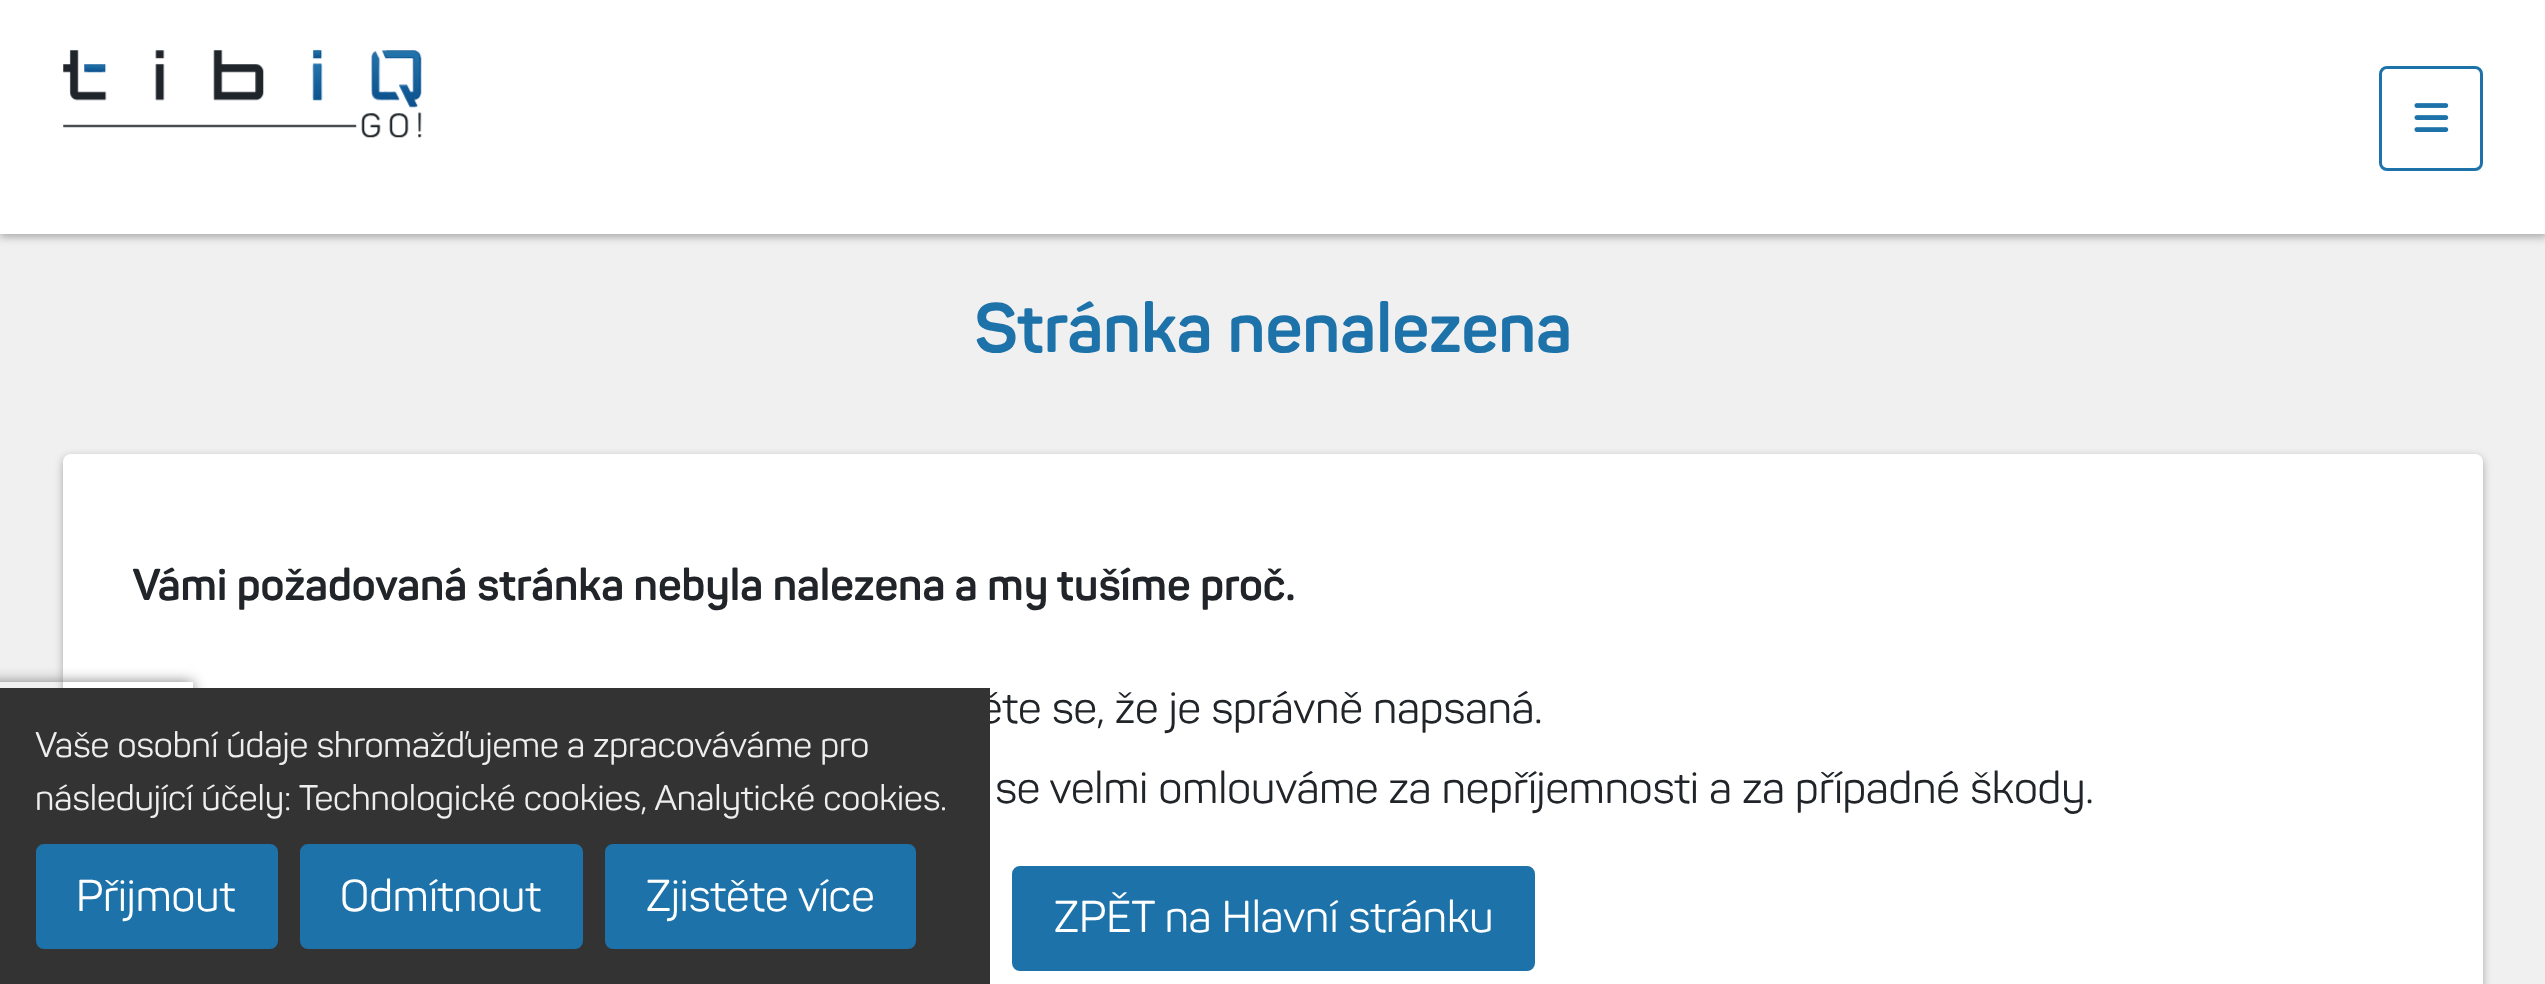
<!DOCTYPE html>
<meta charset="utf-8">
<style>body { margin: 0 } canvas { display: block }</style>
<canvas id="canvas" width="2545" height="984"></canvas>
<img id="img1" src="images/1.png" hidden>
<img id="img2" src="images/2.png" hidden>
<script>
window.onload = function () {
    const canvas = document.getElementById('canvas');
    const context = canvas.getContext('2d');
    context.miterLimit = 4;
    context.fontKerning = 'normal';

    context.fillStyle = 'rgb(240, 240, 240)';
    context.fillRect(0, 0, 2545, 984);
    context.fillStyle = 'rgba(0, 0, 0, 0.3)';
    context.filter = 'blur(4px)';
    context.beginPath();
    context.rect(0, 3, 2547, 234);
    context.fill();
    context.filter = 'none';
    context.fillStyle = 'rgb(255, 255, 255)';
    context.fillRect(0, 0, 2545, 234);
    context.drawImage(document.getElementById('img1'), 63, 49, 359, 89);
    context.beginPath();
    context.roundRect(2380.5, 67.5, 101, 102, 6.5);
    context.strokeStyle = 'rgb(29, 115, 169)';
    context.lineWidth = 3;
    context.stroke();
    context.drawImage(document.getElementById('img2'), 2414, 103, 35, 29);
    context.fillStyle = 'rgba(0, 0, 0, 0.3)';
    context.filter = 'blur(4px)';
    context.beginPath();
    context.roundRect(63, 457, 2420, 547, 8);
    context.fill();
    context.filter = 'none';
    context.fillStyle = 'rgb(255, 255, 255)';
    context.beginPath();
    context.roundRect(63, 454, 2420, 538, 8);
    context.fill();
    context.save();
    context.beginPath();
    context.moveTo(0, 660);
    context.lineTo(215, 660);
    context.lineTo(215, 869);
    context.lineTo(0, 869);
    context.closePath();
    context.moveTo(-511, 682);
    context.lineTo(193, 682);
    context.lineTo(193, 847);
    context.lineTo(-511, 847);
    context.closePath();
    context.clip('evenodd');
    context.fillStyle = 'rgb(128, 128, 128)';
    context.filter = 'blur(7px)';
    context.beginPath();
    context.rect(-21, 682, 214, 165);
    context.fill();
    context.filter = 'none';
    context.restore();
    context.fillStyle = 'rgb(29, 115, 169)';
    context.beginPath();
    context.roundRect(1013.5, 867.5, 520, 102, 6.5);
    context.fill();
    context.stroke();
    context.font = 'bold 68.75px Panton';
    context.fillText('Stránka nenalezena', 974, 352);
    context.font = 'bold 44px Panton';
    context.fillStyle = 'rgb(33, 37, 41)';
    context.fillText('Vámi požadovaná stránka nebyla nalezena a my tušíme proč.', 132, 600);
    context.font = '44px Panton';
    context.fillText('ěte se, že je správně napsaná.', 979, 723);
    context.fillText('se velmi omlouváme za nepříjemnosti a za případné škody.', 995, 803);
    context.fillStyle = 'rgb(255, 255, 255)';
    context.fillText('ZPĚT na Hlavní stránku', 1054, 932);
    context.fillStyle = 'rgb(51, 51, 51)';
    context.fillRect(0, 688, 990, 296);
    context.font = '35.2px Panton';
    context.fillStyle = 'rgb(238, 238, 238)';
    context.fillText('Vaše osobní údaje shromažďujeme a zpracováváme pro', 35, 757);
    context.fillText('následující účely:', 35, 810);
    context.fillText('Technologické cookies, Analytické cookies.', 299, 810);
    context.fillStyle = 'rgb(29, 115, 169)';
    context.beginPath();
    context.roundRect(37.5, 845.5, 239, 102, 6.5);
    context.fill();
    context.stroke();
    context.font = '44px Panton';
    context.fillStyle = 'rgb(255, 255, 255)';
    context.fillText('Přijmout', 76, 911);
    context.fillStyle = 'rgb(29, 115, 169)';
    context.beginPath();
    context.roundRect(301.5, 845.5, 280, 102, 6.5);
    context.fill();
    context.stroke();
    context.fillStyle = 'rgb(255, 255, 255)';
    context.fillText('Odmítnout', 340, 911);
    context.fillStyle = 'rgb(29, 115, 169)';
    context.beginPath();
    context.roundRect(606.5, 845.5, 308, 102, 6.5);
    context.fill();
    context.stroke();
    context.fillStyle = 'rgb(255, 255, 255)';
    context.fillText('Zjistěte více', 646, 911);
};
</script>
